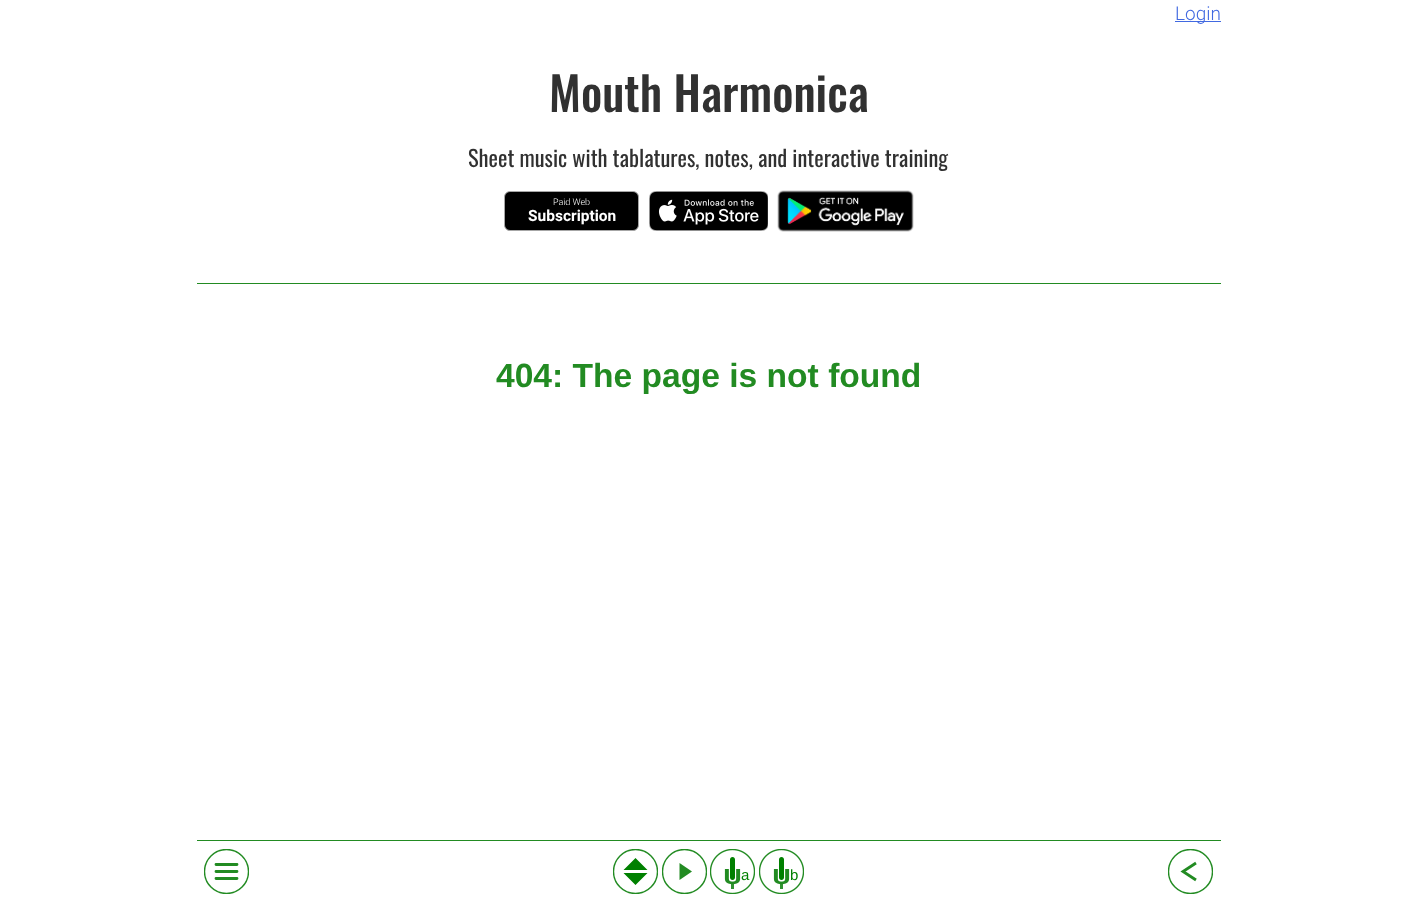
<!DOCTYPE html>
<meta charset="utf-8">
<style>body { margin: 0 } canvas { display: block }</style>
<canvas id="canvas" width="1417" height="901"></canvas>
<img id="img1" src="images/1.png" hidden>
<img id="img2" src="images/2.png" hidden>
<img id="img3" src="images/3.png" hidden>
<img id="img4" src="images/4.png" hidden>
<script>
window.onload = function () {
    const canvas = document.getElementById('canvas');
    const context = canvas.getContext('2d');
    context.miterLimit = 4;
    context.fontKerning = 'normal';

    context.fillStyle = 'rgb(255, 255, 255)';
    context.fillRect(0, 0, 1417, 901);
    context.fillStyle = 'rgb(34, 139, 34)';
    context.fillRect(197, 283, 1024, 1);
    context.fillStyle = 'rgb(65, 105, 225)';
    context.fillRect(1175, 21, 46, 1);
    context.fillStyle = 'rgb(0, 0, 0)';
    context.beginPath();
    context.roundRect(504.5, 191.5, 134, 39, 5.5);
    context.fill();
    context.strokeStyle = 'rgb(166, 166, 166)';
    context.stroke();
    context.drawImage(document.getElementById('img1'), 649, 191, 119, 40);
    context.drawImage(document.getElementById('img2'), 777, 190, 137, 42);
    context.fillStyle = 'rgb(34, 139, 34)';
    context.fillRect(197, 840, 1024, 1);
    context.save();
    context.beginPath();
    context.rect(204, 849, 45, 45);
    context.clip();
    context.beginPath();
    context.arc(226.5, 871.5, 22, 0, 2 * Math.PI);
    context.strokeStyle = 'rgb(34, 139, 34)';
    context.lineWidth = 1.4;
    context.stroke();
    context.restore();
    context.beginPath();
    context.moveTo(216, 871.5);
    context.lineTo(237, 871.5);
    context.moveTo(216, 878.5);
    context.lineTo(237, 878.5);
    context.moveTo(216, 864.5);
    context.lineTo(237, 864.5);
    context.strokeStyle = 'rgb(34, 139, 34)';
    context.lineWidth = 2.8;
    context.lineCap = 'round';
    context.stroke();
    context.save();
    context.beginPath();
    context.rect(613, 849, 45, 45);
    context.clip();
    context.beginPath();
    context.arc(635.5, 871.5, 22, 0, 2 * Math.PI);
    context.lineWidth = 1.4;
    context.stroke();
    context.restore();
    context.fillStyle = 'rgb(0, 128, 0)';
    context.beginPath();
    context.moveTo(635.5, 858);
    context.lineTo(647.5, 870);
    context.lineTo(623.5, 870);
    context.closePath();
    context.moveTo(635.5, 885);
    context.lineTo(647.5, 873);
    context.lineTo(623.5, 873);
    context.closePath();
    context.fill();
    context.save();
    context.beginPath();
    context.rect(662, 849, 45, 45);
    context.clip();
    context.beginPath();
    context.arc(684.5, 871.5, 22, 0, 2 * Math.PI);
    context.lineWidth = 1.4;
    context.stroke();
    context.restore();
    context.fillStyle = 'rgb(34, 139, 34)';
    context.beginPath();
    context.moveTo(679.5, 880);
    context.lineTo(679.5, 863);
    context.lineTo(692, 871.5);
    context.closePath();
    context.fill();
    context.drawImage(document.getElementById('img3'), 710, 849, 45, 45);
    context.drawImage(document.getElementById('img4'), 759, 849, 45, 45);
    context.save();
    context.beginPath();
    context.rect(1168, 849, 45, 45);
    context.clip();
    context.beginPath();
    context.arc(1190.5, 871.5, 22, 0, 2 * Math.PI);
    context.lineWidth = 1.4;
    context.stroke();
    context.restore();
    context.beginPath();
    context.moveTo(1196, 880);
    context.lineTo(1183, 871.5);
    context.lineTo(1196, 863);
    context.lineCap = 'butt';
    context.stroke();
    context.font = '300 19px Roboto';
    context.fillStyle = 'rgb(65, 105, 225)';
    context.fillText('Login', 1175, 20);
    context.font = '500 46.75px Oswald';
    context.fillStyle = 'rgb(49, 49, 49)';
    context.fillText('Mouth Harmonica', 549, 112);
    context.font = '22.4px Oswald';
    context.fillText('Sheet music with tablatures, notes, and interactive training', 468, 167);
    context.font = '300 9px Roboto';
    context.fillStyle = 'rgb(255, 255, 255)';
    context.fillText('Paid Web', 553, 205);
    context.font = 'bold 15.5px Roboto';
    context.fillText('Subscription', 528, 221);
    context.font = 'bold 33.6px Liberation Sans';
    context.fillStyle = 'rgb(34, 139, 34)';
    context.fillText('404: The page is not found', 496, 387);
    context.font = '15px Liberation Sans';
    context.fillStyle = 'rgb(0, 128, 0)';
    context.fillText('a', 741, 880);
    context.fillText('b', 790, 880);
};
</script>
